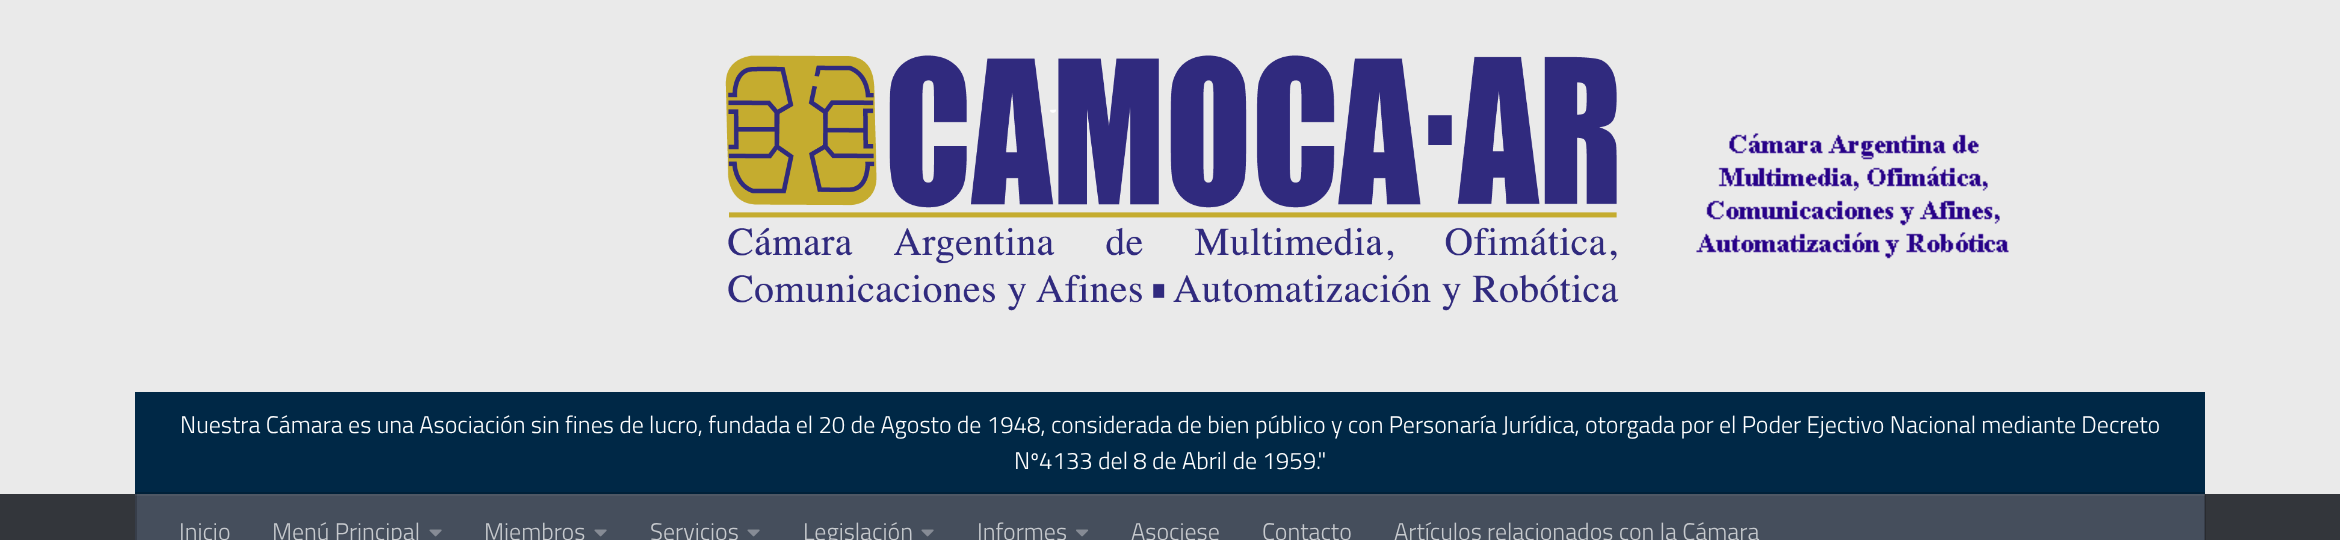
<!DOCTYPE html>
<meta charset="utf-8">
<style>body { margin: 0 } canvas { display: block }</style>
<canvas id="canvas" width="2340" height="540"></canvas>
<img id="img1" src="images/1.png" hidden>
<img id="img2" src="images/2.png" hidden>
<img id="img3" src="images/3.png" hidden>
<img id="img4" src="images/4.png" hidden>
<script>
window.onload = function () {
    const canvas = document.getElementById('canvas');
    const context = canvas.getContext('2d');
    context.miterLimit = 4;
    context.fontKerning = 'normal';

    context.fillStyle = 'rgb(234, 234, 234)';
    context.fillRect(0, 0, 2340, 540);
    context.drawImage(document.getElementById('img1'), 725, 55, 894, 256);
    context.drawImage(document.getElementById('img2'), 1696, 133, 313, 126);
    context.fillStyle = 'rgb(0, 40, 70)';
    context.fillRect(135, 392, 2070, 100);
    context.fillStyle = 'rgb(51, 54, 59)';
    context.fillRect(0, 494, 2340, 46);
    context.fillStyle = 'rgb(41, 43, 47)';
    context.fillRect(2205, 494, 1, 46);
    context.fillStyle = 'rgb(0, 32, 56)';
    context.fillRect(135, 492, 2070, 2);
    context.fillStyle = 'rgb(69, 78, 92)';
    context.fillRect(137, 496, 2067, 44);
    context.fillStyle = 'rgb(78, 87, 100)';
    context.fillRect(135, 494, 2070, 2);
    context.fillStyle = 'rgb(55, 62, 74)';
    context.fillRect(2204, 494, 1, 46);
    context.fillStyle = 'rgb(65, 72, 83)';
    context.fillRect(2204, 494, 1, 2);
    context.fillStyle = 'rgb(55, 62, 74)';
    context.fillRect(135, 494, 2, 46);
    context.fillStyle = 'rgb(65, 72, 83)';
    context.fillRect(135, 494, 2, 2);
    context.drawImage(document.getElementById('img3'), 429, 529, 13, 8);
    context.drawImage(document.getElementById('img3'), 594, 529, 13, 8);
    context.drawImage(document.getElementById('img3'), 747, 529, 13, 8);
    context.drawImage(document.getElementById('img3'), 921, 529, 13, 8);
    context.drawImage(document.getElementById('img4'), 1076, 529, 13, 8);
    context.font = '300 24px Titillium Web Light';
    context.fillStyle = 'rgb(255, 255, 255)';
    context.fillText('Nuestra Cámara es una Asociación sin fines de lucro, fundada el 20 de Agosto de 1948, considerada de bien público y con Personaría Jurídica, otorgada por el Poder Ejectivo Nacional mediante Decreto', 180, 433);
    context.fillText('Nº4133 del 8 de Abril de 1959."', 1014, 469);
    context.fillStyle = 'rgb(199, 202, 206)';
    context.fillText('Inicio', 179, 540);
    context.fillText('Menú Principal', 272, 540);
    context.fillText('Miembros', 484, 540);
    context.fillText('Servicios', 650, 540);
    context.fillText('Legislación', 803, 540);
    context.fillText('Informes', 977, 540);
    context.fillText('Asociese', 1131, 540);
    context.fillText('Contacto', 1262, 540);
    context.fillText('Artículos relacionados con la Cámara', 1394, 540);
};
</script>
